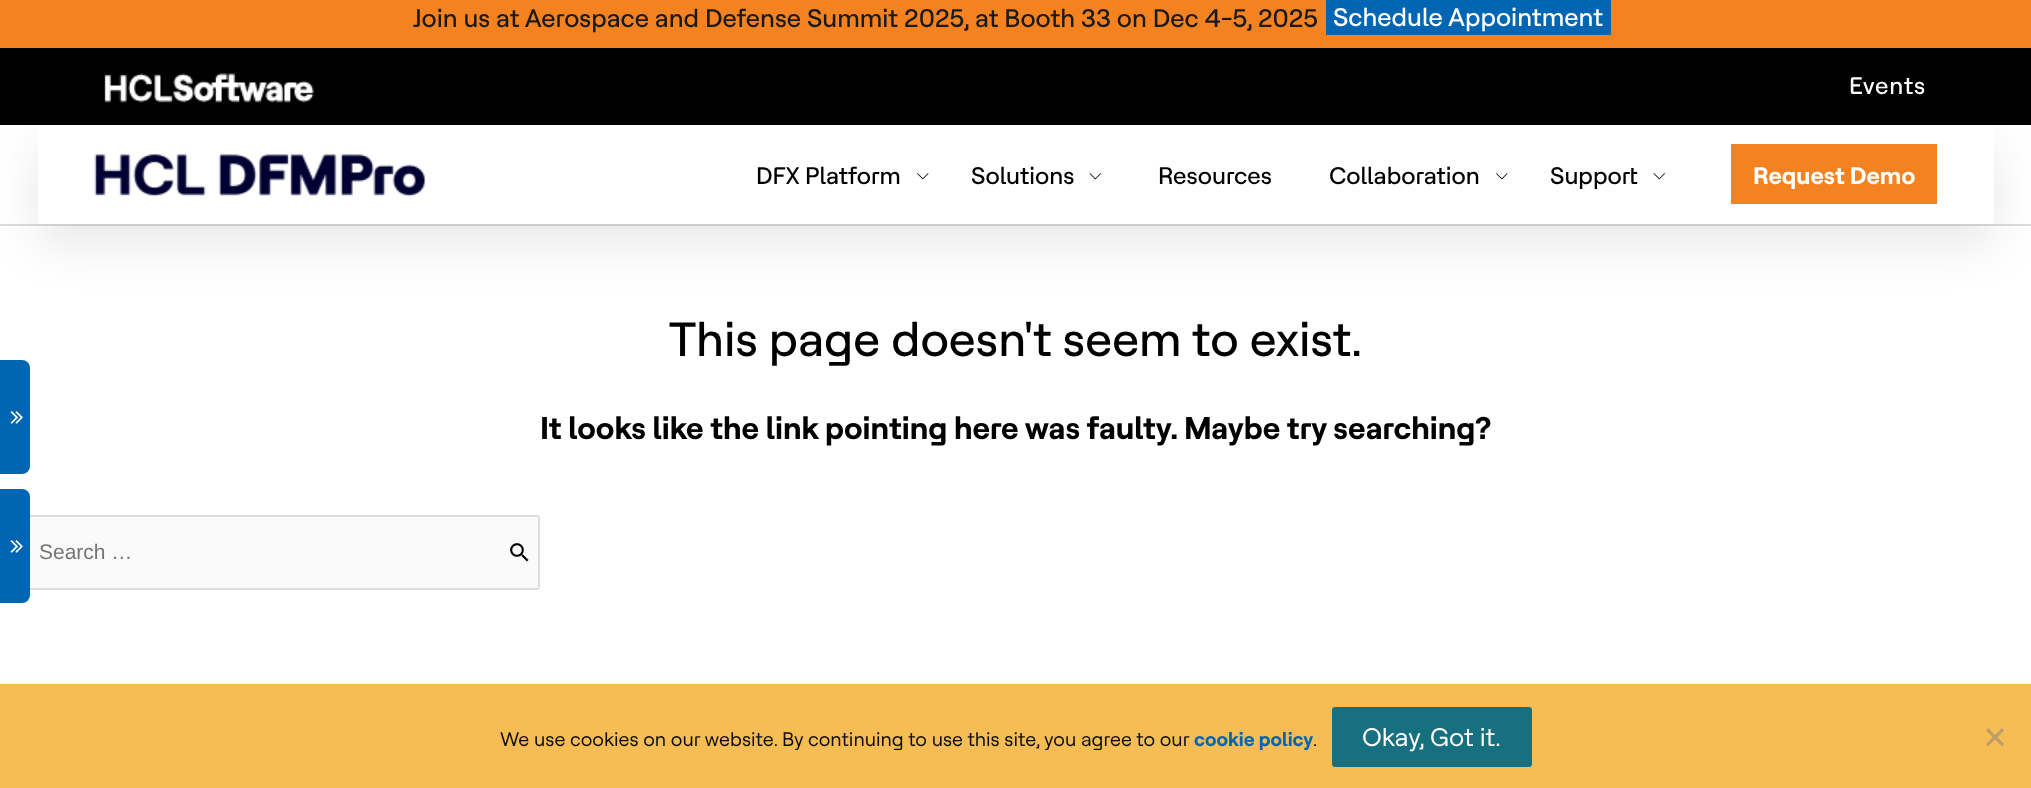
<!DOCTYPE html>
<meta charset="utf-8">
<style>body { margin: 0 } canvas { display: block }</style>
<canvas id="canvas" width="2031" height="788"></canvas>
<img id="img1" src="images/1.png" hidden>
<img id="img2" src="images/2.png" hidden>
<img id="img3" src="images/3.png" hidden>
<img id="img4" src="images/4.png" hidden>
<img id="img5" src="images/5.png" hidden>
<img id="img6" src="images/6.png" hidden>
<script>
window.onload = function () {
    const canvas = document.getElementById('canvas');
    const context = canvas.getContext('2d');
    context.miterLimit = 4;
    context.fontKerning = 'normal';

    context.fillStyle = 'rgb(255, 255, 255)';
    context.fillRect(0, 0, 2031, 788);
    context.fillStyle = 'rgb(221, 221, 221)';
    context.fillRect(0, 224, 2031, 2);
    context.fillStyle = 'rgb(245, 130, 32)';
    context.fillRect(0, 0, 2031, 48);
    context.fillStyle = 'rgb(0, 102, 179)';
    context.fillRect(1326, 0, 285, 35);
    context.fillStyle = 'rgb(0, 0, 0)';
    context.fillRect(0, 48, 2031, 77);
    context.drawImage(document.getElementById('img1'), 104, 73, 210, 30);
    context.fillStyle = 'rgba(0, 0, 0, 0.09)';
    context.filter = 'blur(24px)';
    context.beginPath();
    context.rect(38, 146, 1956, 99);
    context.fill();
    context.filter = 'none';
    context.fillStyle = 'rgb(255, 255, 255)';
    context.fillRect(38, 125, 1956, 99);
    context.drawImage(document.getElementById('img2'), 94, 154, 332, 43);
    context.drawImage(document.getElementById('img3'), 917, 173, 12, 7);
    context.drawImage(document.getElementById('img4'), 1089, 173, 12, 7);
    context.drawImage(document.getElementById('img3'), 1496, 173, 12, 7);
    context.drawImage(document.getElementById('img4'), 1653, 173, 12, 7);
    context.fillStyle = 'rgb(245, 130, 32)';
    context.fillRect(1731, 144, 206, 60);
    context.fillStyle = 'rgb(0, 102, 179)';
    context.beginPath();
    context.roundRect(0, 360, 30, 114, [0, 8, 8, 0]);
    context.fill();
    context.drawImage(document.getElementById('img5'), 10, 411, 13, 13);
    context.fillStyle = 'rgb(250, 250, 250)';
    context.beginPath();
    context.roundRect(16, 516, 523, 73, 2);
    context.fill();
    context.strokeStyle = 'rgb(221, 221, 221)';
    context.lineWidth = 2;
    context.stroke();
    context.fillStyle = 'rgb(0, 102, 179)';
    context.beginPath();
    context.roundRect(0, 489, 30, 114, [0, 8, 8, 0]);
    context.fill();
    context.drawImage(document.getElementById('img5'), 10, 540, 13, 13);
    context.drawImage(document.getElementById('img6'), 510, 543, 19, 19);
    context.fillStyle = 'rgb(246, 189, 84)';
    context.fillRect(0, 684, 2031, 104);
    context.fillStyle = 'rgb(23, 112, 127)';
    context.beginPath();
    context.roundRect(1332, 707, 200, 60, 3);
    context.fill();
    context.fillStyle = 'rgb(187, 159, 106)';
    context.beginPath();
    context.moveTo(2002, 728);
    context.lineTo(2004, 730.5);
    context.lineTo(1988, 746.5);
    context.lineTo(1986, 744);
    context.closePath();
    context.fill();
    context.beginPath();
    context.moveTo(1986, 730.5);
    context.lineTo(1988, 728);
    context.lineTo(2004, 744);
    context.lineTo(2002, 746.5);
    context.closePath();
    context.fill();
    context.font = '500 25.5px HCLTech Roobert';
    context.fillStyle = 'rgb(25, 26, 25)';
    context.fillText('Join us at Aerospace and Defense Summit 2025, at Booth 33 on Dec 4-5, 2025', 413, 27);
    context.fillStyle = 'rgb(255, 255, 255)';
    context.fillText('Schedule Appointment', 1333, 26);
    context.letterSpacing = '0.75px';
    context.font = '500 24px HCLTech Roobert';
    context.fillText('Events', 1849, 94);
    context.letterSpacing = '0px';
    context.fillStyle = 'rgb(0, 0, 0)';
    context.fillText('DFX Platform', 756, 184);
    context.fillText('Solutions', 971, 184);
    context.fillText('Resources', 1158, 184);
    context.fillText('Collaboration', 1329, 184);
    context.fillText('Support', 1550, 184);
    context.font = '800 24px HCLTech Roobert';
    context.fillStyle = 'rgb(255, 255, 255)';
    context.fillText('Request Demo', 1753, 184);
    context.font = '500 48px HCLTech Roobert';
    context.fillStyle = 'rgb(0, 0, 0)';
    context.fillText('This page doesn\'t seem to exist.', 669, 356);
    context.font = '800 31.5px HCLTech Roobert';
    context.fillText('It looks like the link pointing here was faulty. Maybe try searching?', 540, 439);
    context.font = '21px Liberation Sans';
    context.fillStyle = 'rgb(117, 117, 117)';
    context.fillText('Search …', 39, 559);
    context.font = '19.5px HCLTech Roobert';
    context.fillStyle = 'rgb(12, 12, 12)';
    context.fillText('We use cookies on our website. By continuing to use this site, you agree to our', 500, 746);
    context.font = '800 19.5px HCLTech Roobert';
    context.fillStyle = 'rgb(0, 101, 179)';
    context.fillText('cookie policy', 1194, 746);
    context.font = '19.5px HCLTech Roobert';
    context.fillStyle = 'rgb(12, 12, 12)';
    context.fillText('.', 1313, 746);
    context.font = '25.5px HCLTech Roobert';
    context.fillStyle = 'rgb(255, 255, 255)';
    context.fillText('Okay, Got it.', 1362, 746);
};
</script>
